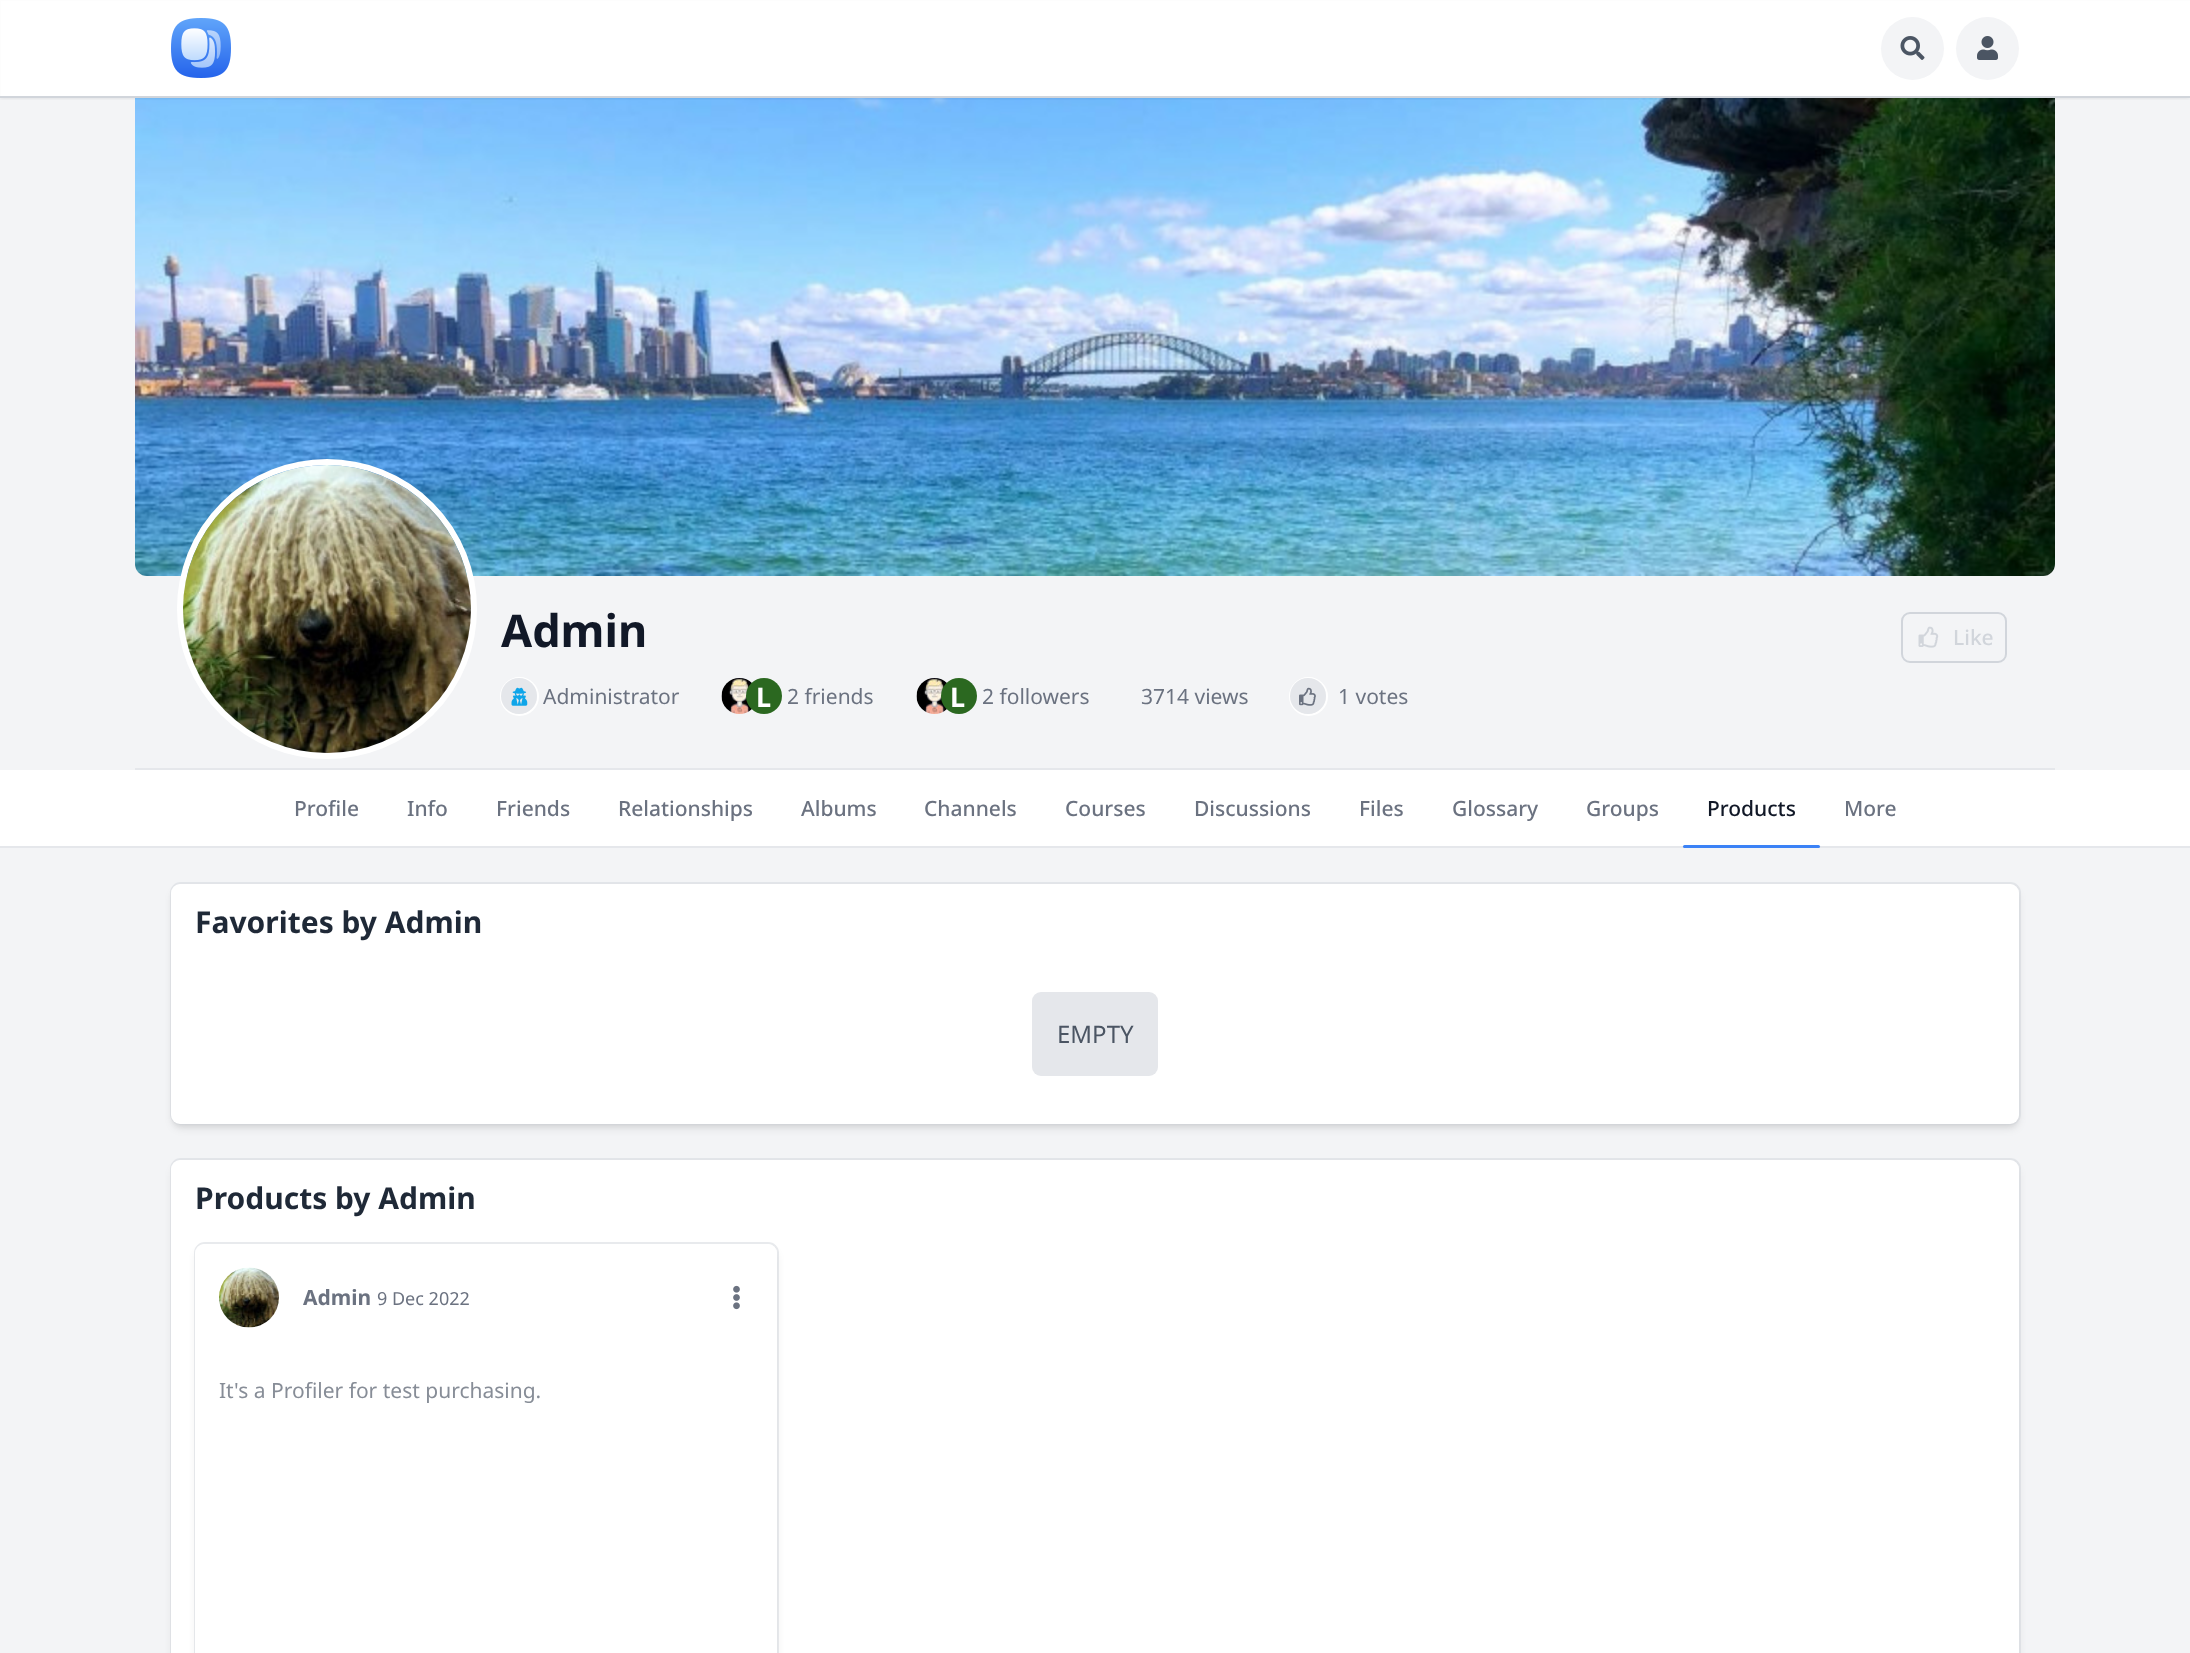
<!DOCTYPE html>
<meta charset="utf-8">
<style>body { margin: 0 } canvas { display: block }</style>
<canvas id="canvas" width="2190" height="1653"></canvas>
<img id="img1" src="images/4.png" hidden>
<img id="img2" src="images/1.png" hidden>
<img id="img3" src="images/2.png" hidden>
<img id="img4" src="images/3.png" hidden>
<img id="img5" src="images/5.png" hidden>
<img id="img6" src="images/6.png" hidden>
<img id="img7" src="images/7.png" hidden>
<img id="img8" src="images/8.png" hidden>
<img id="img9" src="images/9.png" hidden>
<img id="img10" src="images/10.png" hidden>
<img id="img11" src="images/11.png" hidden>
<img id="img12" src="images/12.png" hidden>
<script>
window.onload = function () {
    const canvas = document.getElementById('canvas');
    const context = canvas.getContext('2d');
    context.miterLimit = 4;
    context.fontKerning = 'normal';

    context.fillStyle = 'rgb(243, 244, 246)';
    context.fillRect(0, 0, 2190, 1653);
    context.drawImage(document.getElementById('img1'), 135, 98, 1920, 478);
    context.save();
    context.beginPath();
    context.rect(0, 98, 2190, 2);
    context.clip();
    context.fillStyle = 'rgba(0, 0, 0, 0.1)';
    context.filter = 'blur(2px)';
    context.beginPath();
    context.rect(0, 2, 2190, 96);
    context.fill();
    context.filter = 'none';
    context.restore();
    context.strokeStyle = 'rgb(209, 213, 219)';
    context.lineWidth = 2;
    context.strokeRect(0, 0, 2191, 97);
    context.fillStyle = 'rgba(255, 255, 255, 0.95)';
    context.fillRect(0, 0, 2190, 96);
    context.drawImage(document.getElementById('img2'), 171, 18, 60, 60);
    context.fillStyle = 'rgb(243, 244, 246)';
    context.beginPath();
    context.arc(1912.5, 48.5, 31.5, 0, 2 * Math.PI);
    context.fill();
    context.drawImage(document.getElementById('img3'), 1900, 36, 25, 24);
    context.beginPath();
    context.arc(1987.5, 48.5, 31.5, 0, 2 * Math.PI);
    context.fill();
    context.drawImage(document.getElementById('img4'), 1977, 36, 21, 24);
    context.beginPath();
    context.arc(327, 609, 147, 0, 2 * Math.PI);
    context.strokeStyle = 'rgb(255, 255, 255)';
    context.lineWidth = 6;
    context.stroke();
    context.drawImage(document.getElementById('img5'), 183, 465, 288, 288);
    context.beginPath();
    context.arc(519.5, 696.5, 18.5, 0, 2 * Math.PI);
    context.lineWidth = 2;
    context.stroke();
    context.fillStyle = 'rgb(229, 231, 235)';
    context.beginPath();
    context.arc(519, 696, 18, 0, 2 * Math.PI);
    context.fill();
    context.drawImage(document.getElementById('img6'), 511, 687, 17, 19);
    context.drawImage(document.getElementById('img7'), 721, 678, 31, 36);
    context.fillStyle = 'rgb(43, 104, 32)';
    context.beginPath();
    context.arc(764, 696, 18, 0, 2 * Math.PI);
    context.fill();
    context.drawImage(document.getElementById('img8'), 916, 678, 31, 36);
    context.beginPath();
    context.arc(959, 696, 18, 0, 2 * Math.PI);
    context.fill();
    context.beginPath();
    context.arc(1308.5, 696.5, 18.5, 0, 2 * Math.PI);
    context.stroke();
    context.fillStyle = 'rgb(229, 231, 235)';
    context.beginPath();
    context.arc(1308, 696, 18, 0, 2 * Math.PI);
    context.fill();
    context.drawImage(document.getElementById('img9'), 1299, 687, 17, 19);
    context.beginPath();
    context.roundRect(1902, 613, 104, 49, 8);
    context.strokeStyle = 'rgb(209, 213, 219)';
    context.stroke();
    context.drawImage(document.getElementById('img10'), 1918, 626, 21, 22);
    context.fillRect(135, 768, 1920, 2);
    context.fillStyle = 'rgb(255, 255, 255)';
    context.fillRect(0, 770, 2190, 76);
    context.fillStyle = 'rgb(229, 231, 235)';
    context.fillRect(0, 846, 2190, 2);
    context.fillStyle = 'rgb(59, 130, 246)';
    context.beginPath();
    context.roundRect(1683, 845, 137, 3, 1.5);
    context.fill();
    context.fillStyle = 'rgba(0, 0, 0, 0.1)';
    context.filter = 'blur(3px)';
    context.beginPath();
    context.roundRect(174, 890, 1842, 234, 6);
    context.fill();
    context.filter = 'none';
    context.filter = 'blur(4.5px)';
    context.beginPath();
    context.roundRect(173, 891, 1845, 237, 8);
    context.fill();
    context.filter = 'none';
    context.beginPath();
    context.roundRect(171, 883, 1849, 241, 10);
    context.strokeStyle = 'rgba(209, 213, 219, 0.5)';
    context.stroke();
    context.fillStyle = 'rgb(255, 255, 255)';
    context.beginPath();
    context.roundRect(171, 884, 1848, 240, 9);
    context.fill();
    context.fillStyle = 'rgb(229, 231, 235)';
    context.beginPath();
    context.roundRect(1032, 992, 126, 84, 9);
    context.fill();
    context.fillStyle = 'rgba(0, 0, 0, 0.1)';
    context.filter = 'blur(4.5px)';
    context.beginPath();
    context.roundRect(173, 1167, 1845, 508, 8);
    context.fill();
    context.filter = 'none';
    context.beginPath();
    context.roundRect(171, 1159, 1849, 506, 10);
    context.stroke();
    context.fillStyle = 'rgb(255, 255, 255)';
    context.beginPath();
    context.roundRect(171, 1160, 1848, 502, 9);
    context.fill();
    context.fillStyle = 'rgba(0, 0, 0, 0.1)';
    context.filter = 'blur(4.5px)';
    context.beginPath();
    context.roundRect(197, 1251, 579, 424, 8);
    context.fill();
    context.filter = 'none';
    context.beginPath();
    context.roundRect(195, 1243, 583, 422, 10);
    context.stroke();
    context.fillStyle = 'rgb(255, 255, 255)';
    context.beginPath();
    context.roundRect(195, 1244, 582, 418, 9);
    context.fill();
    context.drawImage(document.getElementById('img11'), 219, 1267, 60, 61);
    context.drawImage(document.getElementById('img12'), 733, 1285, 7, 25);
    context.font = 'bold 45px Noto Sans';
    context.fillStyle = 'rgb(17, 24, 39)';
    context.fillText('Admin', 501, 647);
    context.font = '21px Noto Sans';
    context.fillStyle = 'rgb(107, 114, 128)';
    context.fillText('Administrator', 543, 704);
    context.font = 'bold 27px Noto Sans';
    context.fillStyle = 'rgb(255, 255, 255)';
    context.fillText('L', 756, 707);
    context.font = '21px Noto Sans';
    context.fillStyle = 'rgb(107, 114, 128)';
    context.fillText('2 friends', 787, 704);
    context.font = 'bold 27px Noto Sans';
    context.fillStyle = 'rgb(255, 255, 255)';
    context.fillText('L', 950, 707);
    context.font = '21px Noto Sans';
    context.fillStyle = 'rgb(107, 114, 128)';
    context.fillText('2 followers', 982, 704);
    context.fillText('3714 views', 1141, 704);
    context.fillText('1 votes', 1338, 704);
    context.font = '500 21px Noto Sans';
    context.fillStyle = 'rgb(209, 213, 219)';
    context.fillText('Like', 1953, 645);
    context.fillStyle = 'rgb(107, 114, 128)';
    context.fillText('Profile', 294, 816);
    context.fillText('Info', 407, 816);
    context.fillText('Friends', 496, 816);
    context.fillText('Relationships', 618, 816);
    context.fillText('Albums', 801, 816);
    context.fillText('Channels', 924, 816);
    context.fillText('Courses', 1065, 816);
    context.fillText('Discussions', 1194, 816);
    context.fillText('Files', 1359, 816);
    context.fillText('Glossary', 1452, 816);
    context.fillText('Groups', 1586, 816);
    context.fillStyle = 'rgb(17, 24, 39)';
    context.fillText('Products', 1707, 816);
    context.fillStyle = 'rgb(107, 114, 128)';
    context.fillText('More', 1844, 816);
    context.font = 'bold 30px Noto Sans';
    context.fillStyle = 'rgb(31, 41, 55)';
    context.fillText('Favorites by Admin', 195, 933);
    context.font = '24px Noto Sans';
    context.fillStyle = 'rgb(75, 85, 99)';
    context.fillText('EMPTY', 1057, 1043);
    context.font = 'bold 30px Noto Sans';
    context.fillStyle = 'rgb(31, 41, 55)';
    context.fillText('Products by Admin', 195, 1209);
    context.font = 'bold 21px Noto Sans';
    context.fillStyle = 'rgb(107, 114, 128)';
    context.fillText('Admin', 303, 1305);
    context.font = '18px Noto Sans';
    context.fillText('9 Dec 2022', 377, 1305);
    context.font = '21px Noto Sans';
    context.fillStyle = 'rgb(135, 141, 151)';
    context.fillText('It\'s a Profiler for test purchasing.', 219, 1398);
};
</script>
